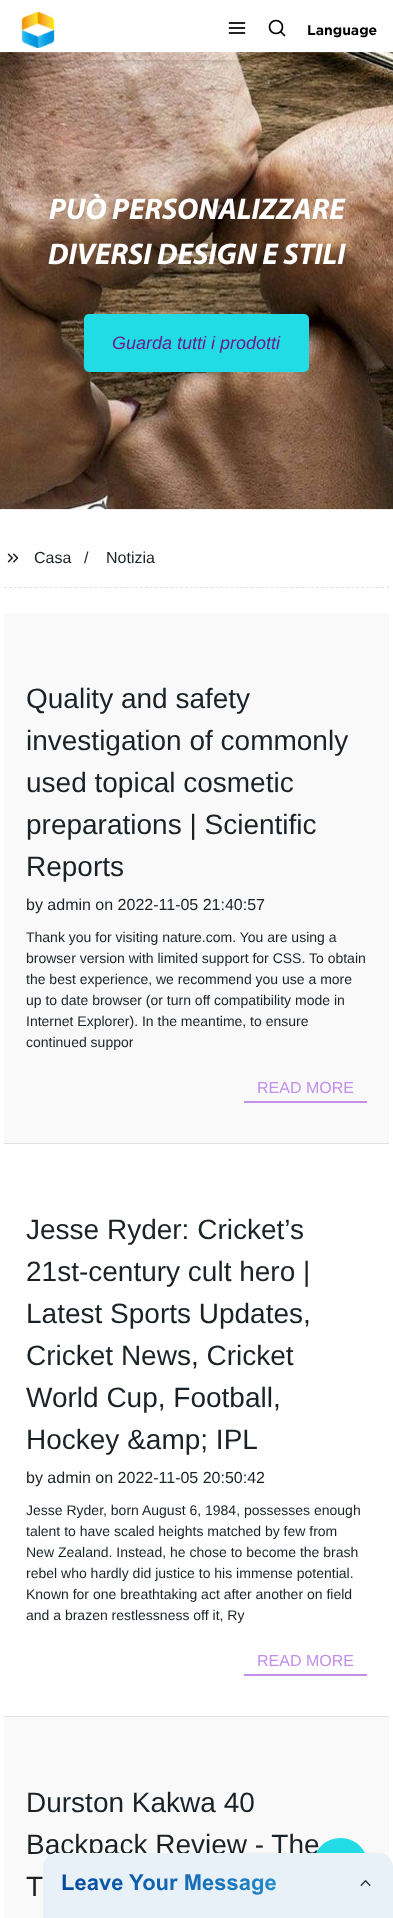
<!DOCTYPE html>
<meta charset="utf-8">
<style>body { margin: 0 } canvas { display: block }</style>
<canvas id="canvas" width="393" height="1918"></canvas>
<img id="img1" src="images/3.png" hidden>
<img id="img2" src="images/1.png" hidden>
<img id="img3" src="images/2.png" hidden>
<img id="img4" src="images/4.png" hidden>
<img id="img5" src="images/5.png" hidden>
<script>
window.onload = function () {
    const canvas = document.getElementById('canvas');
    const context = canvas.getContext('2d');
    context.miterLimit = 4;
    context.fontKerning = 'normal';

    context.fillStyle = 'rgb(255, 255, 255)';
    context.fillRect(0, 0, 393, 1918);
    context.drawImage(document.getElementById('img1'), 0, 52, 393, 458);
    context.save();
    context.beginPath();
    context.rect(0, 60, 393, 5);
    context.clip();
    context.fillStyle = 'rgba(0, 0, 0, 0.2)';
    context.filter = 'blur(4px)';
    context.beginPath();
    context.rect(0, 0, 393, 60);
    context.fill();
    context.filter = 'none';
    context.restore();
    context.drawImage(document.getElementById('img2'), 21, 12, 34, 36);
    context.drawImage(document.getElementById('img3'), 228, 22, 18, 12);
    context.beginPath();
    context.arc(276, 27, 6.5, 0, 2 * Math.PI);
    context.strokeStyle = 'rgb(0, 0, 0)';
    context.lineWidth = 1.7;
    context.stroke();
    context.beginPath();
    context.moveTo(284.5, 35.5);
    context.lineTo(281, 32);
    context.lineCap = 'round';
    context.lineJoin = 'round';
    context.stroke();
    context.fillStyle = 'rgb(33, 220, 228)';
    context.beginPath();
    context.roundRect(84, 314, 225, 58, 5);
    context.fill();
    context.beginPath();
    context.moveTo(4, 587.5);
    context.lineTo(389, 587.5);
    context.strokeStyle = 'rgb(224, 225, 229)';
    context.lineWidth = 1;
    context.lineCap = 'butt';
    context.lineJoin = 'miter';
    context.setLineDash([3, 2.03]);
    context.stroke();
    context.drawImage(document.getElementById('img4'), 7, 553, 12, 10);
    context.fillStyle = 'rgb(249, 249, 249)';
    context.fillRect(4, 613, 385, 530);
    context.fillStyle = 'rgb(224, 225, 229)';
    context.fillRect(4, 1143, 385, 1);
    context.fillStyle = 'rgb(195, 143, 233)';
    context.fillRect(244, 1101, 123, 2);
    context.fillStyle = 'rgb(224, 225, 229)';
    context.fillRect(4, 1716, 385, 1);
    context.fillStyle = 'rgb(195, 143, 233)';
    context.fillRect(244, 1674, 123, 2);
    context.fillStyle = 'rgb(249, 249, 249)';
    context.fillRect(4, 1717, 385, 201);
    context.font = 'bold 14px Gotham';
    context.fillStyle = 'rgb(0, 0, 0)';
    context.fillText('Language', 307, 35);
    context.font = 'italic bold 30px Myriad';
    context.fillStyle = 'rgb(255, 255, 255)';
    context.fillText('PUÒ PERSONALIZZARE', 49, 219);
    context.fillText('DIVERSI DESIGN E STILI', 48, 264);
    context.font = 'italic 18px Liberation Sans';
    context.fillStyle = 'rgb(110, 27, 141)';
    context.fillText('Guarda tutti i prodotti', 112, 349);
    context.font = '16px Liberation Sans';
    context.fillStyle = 'rgb(27, 34, 39)';
    context.fillText('Casa', 34, 563);
    context.fillText('/', 84, 563);
    context.fillText('Notizia', 106, 563);
    context.font = '28px Liberation Sans';
    context.fillText('Quality and safety', 26, 708);
    context.fillText('investigation of commonly', 26, 750);
    context.fillText('used topical cosmetic', 26, 792);
    context.fillText('preparations | Scientific', 26, 834);
    context.fillText('Reports', 26, 876);
    context.font = '16px Liberation Sans';
    context.fillText('by admin on 2022-11-05 21:40:57', 26, 910);
    context.font = '14px Liberation Sans';
    context.fillText('Thank you for visiting nature.com. You are using a', 26, 942);
    context.fillText('browser version with limited support for CSS. To obtain', 26, 963);
    context.fillText('the best experience, we recommend you use a more', 26, 984);
    context.fillText('up to date browser (or turn off compatibility mode in', 26, 1005);
    context.fillText('Internet Explorer). In the meantime, to ensure', 26, 1026);
    context.fillText('continued suppor', 26, 1047);
    context.font = '16px Liberation Sans';
    context.fillStyle = 'rgb(195, 143, 233)';
    context.fillText('READ MORE', 257, 1093);
    context.font = '28px Liberation Sans';
    context.fillStyle = 'rgb(27, 34, 39)';
    context.fillText('Jesse Ryder: Cricket’s', 26, 1239);
    context.fillText('21st-century cult hero |', 26, 1281);
    context.fillText('Latest Sports Updates,', 26, 1323);
    context.fillText('Cricket News, Cricket', 26, 1365);
    context.fillText('World Cup, Football,', 26, 1407);
    context.fillText('Hockey &amp; IPL', 26, 1449);
    context.font = '16px Liberation Sans';
    context.fillText('by admin on 2022-11-05 20:50:42', 26, 1483);
    context.font = '14px Liberation Sans';
    context.fillText('Jesse Ryder, born August 6, 1984, possesses enough', 26, 1515);
    context.fillText('talent to have scaled heights matched by few from', 26, 1536);
    context.fillText('New Zealand. Instead, he chose to become the brash', 26, 1557);
    context.fillText('rebel who hardly did justice to his immense potential.', 26, 1578);
    context.fillText('Known for one breathtaking act after another on field', 26, 1599);
    context.fillText('and a brazen restlessness off it, Ry', 26, 1620);
    context.font = '16px Liberation Sans';
    context.fillStyle = 'rgb(195, 143, 233)';
    context.fillText('READ MORE', 257, 1666);
    context.font = '28px Liberation Sans';
    context.fillStyle = 'rgb(27, 34, 39)';
    context.fillText('Durston Kakwa 40', 26, 1812);
    context.fillText('Backpack Review - The', 26, 1854);
    context.fillText('T', 26, 1896);
    context.fillStyle = 'rgb(33, 220, 228)';
    context.beginPath();
    context.arc(340.5, 1865.5, 27.5, 0, 2 * Math.PI);
    context.fill();
    context.drawImage(document.getElementById('img5'), 43, 1853, 350, 65);
};
</script>
